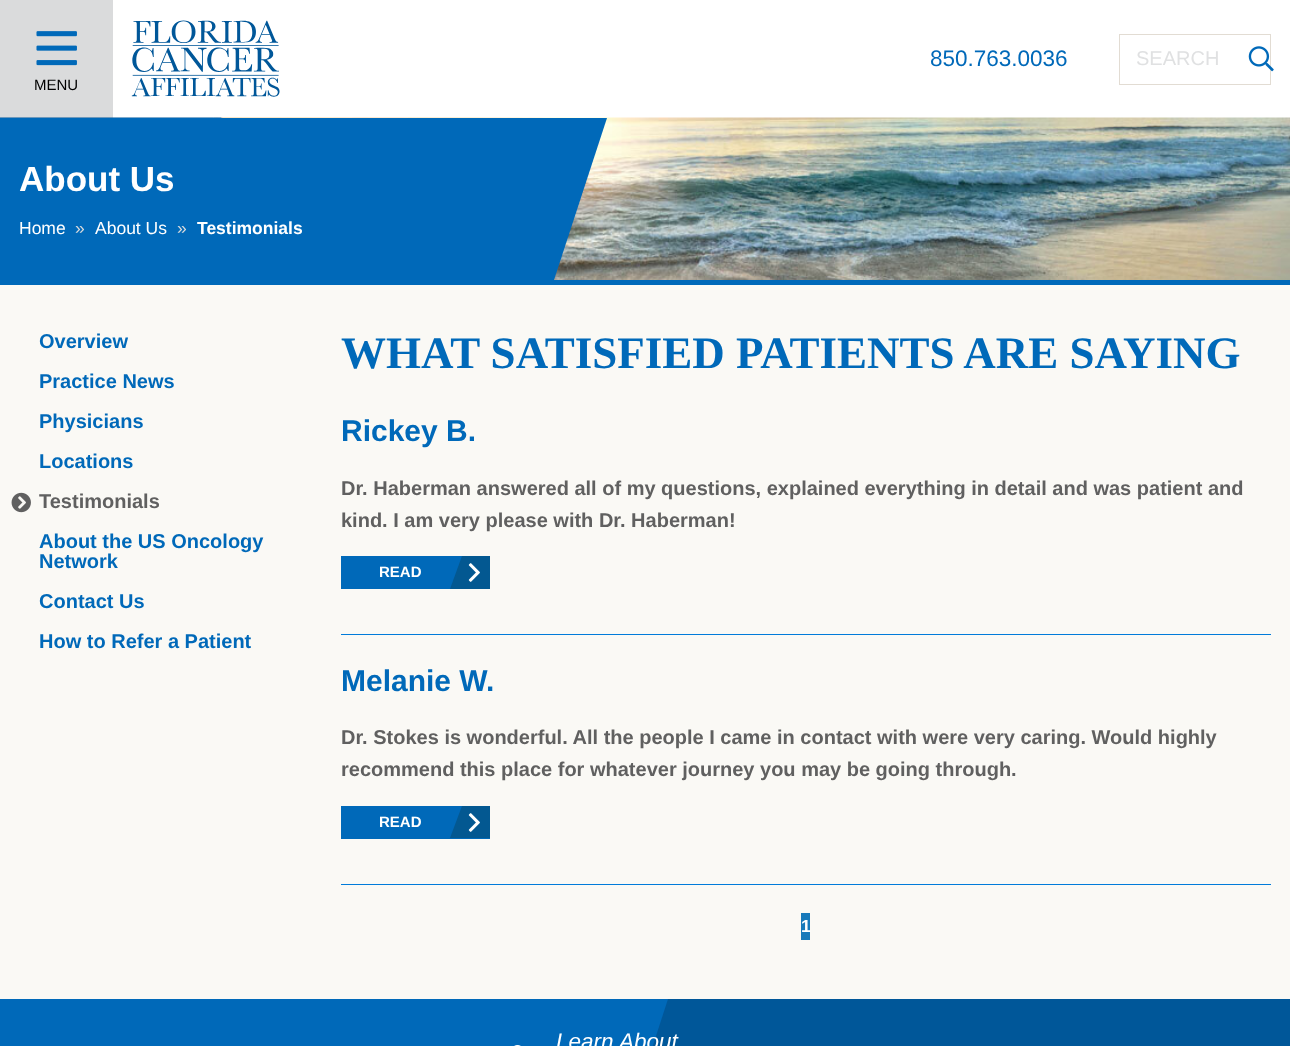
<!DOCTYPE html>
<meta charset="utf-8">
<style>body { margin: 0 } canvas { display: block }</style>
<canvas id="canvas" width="1290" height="1046"></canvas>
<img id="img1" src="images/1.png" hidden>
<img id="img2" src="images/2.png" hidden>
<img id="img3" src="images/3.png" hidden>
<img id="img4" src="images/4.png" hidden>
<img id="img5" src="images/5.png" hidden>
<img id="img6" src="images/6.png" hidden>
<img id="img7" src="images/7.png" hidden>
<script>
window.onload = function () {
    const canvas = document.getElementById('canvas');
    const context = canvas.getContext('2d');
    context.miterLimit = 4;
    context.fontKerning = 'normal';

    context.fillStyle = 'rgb(250, 249, 245)';
    context.fillRect(0, 0, 1290, 1046);
    context.fillStyle = 'rgb(255, 255, 255)';
    context.fillRect(113, 0, 1177, 118);
    context.drawImage(document.getElementById('img1'), 131, 20, 149, 77);
    context.strokeStyle = 'rgb(226, 220, 211)';
    context.strokeRect(1119.5, 34.5, 151, 50);
    context.drawImage(document.getElementById('img2'), 1248, 46, 26, 26);
    context.fillStyle = 'rgb(218, 219, 220)';
    context.fillRect(0, 0, 113, 118);
    context.drawImage(document.getElementById('img3'), 36, 31, 41, 35);
    context.drawImage(document.getElementById('img4'), 0, 117, 1290, 163);
    context.fillStyle = 'rgb(0, 105, 185)';
    context.beginPath();
    context.moveTo(-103, 118);
    context.lineTo(607, 118);
    context.lineTo(554, 280);
    context.lineTo(-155, 280);
    context.closePath();
    context.fill();
    context.fillRect(0, 280, 1290, 5);
    context.drawImage(document.getElementById('img5'), 11, 492, 20, 21);
    context.fillStyle = 'rgb(0, 123, 218)';
    context.fillRect(341, 634, 930, 1);
    context.fillStyle = 'rgb(0, 105, 185)';
    context.fillRect(341, 556, 121, 33);
    context.save();
    context.beginPath();
    context.rect(341, 556, 149, 33);
    context.clip();
    context.fillStyle = 'rgb(3, 88, 145)';
    context.beginPath();
    context.moveTo(462, 556);
    context.lineTo(506, 556);
    context.lineTo(494, 589);
    context.lineTo(450, 589);
    context.closePath();
    context.fill();
    context.restore();
    context.drawImage(document.getElementById('img6'), 468, 563, 12, 19);
    context.fillStyle = 'rgb(0, 123, 218)';
    context.fillRect(341, 884, 930, 1);
    context.fillStyle = 'rgb(0, 105, 185)';
    context.fillRect(341, 806, 149, 33);
    context.save();
    context.beginPath();
    context.rect(341, 806, 149, 33);
    context.clip();
    context.fillStyle = 'rgb(3, 88, 145)';
    context.beginPath();
    context.moveTo(462, 806);
    context.lineTo(506, 806);
    context.lineTo(494, 838);
    context.lineTo(450, 838);
    context.closePath();
    context.fill();
    context.restore();
    context.drawImage(document.getElementById('img6'), 468, 813, 12, 19);
    context.fillStyle = 'rgb(23, 121, 186)';
    context.fillRect(801, 913, 9, 27);
    context.fillStyle = 'rgb(0, 105, 185)';
    context.fillRect(0, 999, 668, 47);
    context.drawImage(document.getElementById('img7'), 514, 1045, 7, 1);
    context.fillStyle = 'rgb(0, 87, 153)';
    context.beginPath();
    context.moveTo(668, 999);
    context.lineTo(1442, 999);
    context.lineTo(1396, 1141);
    context.lineTo(622, 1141);
    context.closePath();
    context.fill();
    context.font = '22.5px Liberation Sans';
    context.fillStyle = 'rgb(0, 105, 185)';
    context.fillText('850.763.0036', 930, 66);
    context.font = '20px Liberation Sans';
    context.fillStyle = 'rgb(224, 225, 226)';
    context.fillText('SEARCH', 1136, 65);
    context.font = '15px Liberation Sans';
    context.fillStyle = 'rgb(0, 0, 0)';
    context.fillText('MENU', 34, 90);
    context.font = 'bold 35px Liberation Sans';
    context.fillStyle = 'rgb(255, 255, 255)';
    context.fillText('About Us', 19, 191);
    context.font = '17.5px Liberation Sans';
    context.fillText('Home', 19, 234);
    context.fillStyle = 'rgb(218, 219, 220)';
    context.fillText('»', 75, 234);
    context.fillStyle = 'rgb(255, 255, 255)';
    context.fillText('About Us', 95, 234);
    context.fillStyle = 'rgb(218, 219, 220)';
    context.fillText('»', 177, 234);
    context.font = 'bold 17.5px Liberation Sans';
    context.fillStyle = 'rgb(255, 255, 255)';
    context.fillText('Testimonials', 197, 234);
    context.font = 'bold 20px Liberation Sans';
    context.fillStyle = 'rgb(0, 105, 185)';
    context.fillText('Overview', 39, 348);
    context.fillText('Practice News', 39, 388);
    context.fillText('Physicians', 39, 428);
    context.fillText('Locations', 39, 468);
    context.fillStyle = 'rgb(96, 96, 96)';
    context.fillText('Testimonials', 39, 508);
    context.fillStyle = 'rgb(0, 105, 185)';
    context.fillText('About the US Oncology', 39, 548);
    context.fillText('Network', 39, 568);
    context.fillText('Contact Us', 39, 608);
    context.fillText('How to Refer a Patient', 39, 648);
    context.font = 'bold 45px Liberation Serif';
    context.fillText('WHAT SATISFIED PATIENTS ARE SAYING', 341, 368);
    context.font = 'bold 30px Liberation Sans';
    context.fillText('Rickey B.', 341, 441);
    context.font = 'bold 20px Liberation Sans';
    context.fillStyle = 'rgb(96, 96, 96)';
    context.fillText('Dr. Haberman answered all of my questions, explained everything in detail and was patient and', 341, 495);
    context.fillText('kind. I am very please with Dr. Haberman!', 341, 527);
    context.font = 'bold 15px Liberation Sans';
    context.fillStyle = 'rgb(255, 255, 255)';
    context.fillText('READ', 379, 577);
    context.font = 'bold 30px Liberation Sans';
    context.fillStyle = 'rgb(0, 105, 185)';
    context.fillText('Melanie W.', 341, 691);
    context.font = 'bold 20px Liberation Sans';
    context.fillStyle = 'rgb(96, 96, 96)';
    context.fillText('Dr. Stokes is wonderful. All the people I came in contact with were very caring. Would highly', 341, 744);
    context.fillText('recommend this place for whatever journey you may be going through.', 341, 776);
    context.font = 'bold 15px Liberation Sans';
    context.fillStyle = 'rgb(255, 255, 255)';
    context.fillText('READ', 379, 827);
    context.font = 'bold 17.5px Liberation Sans';
    context.fillText('1', 801, 932);
    context.font = 'italic 22.5px Liberation Sans';
    context.fillText('Learn About', 556, 1049);
};
</script>
